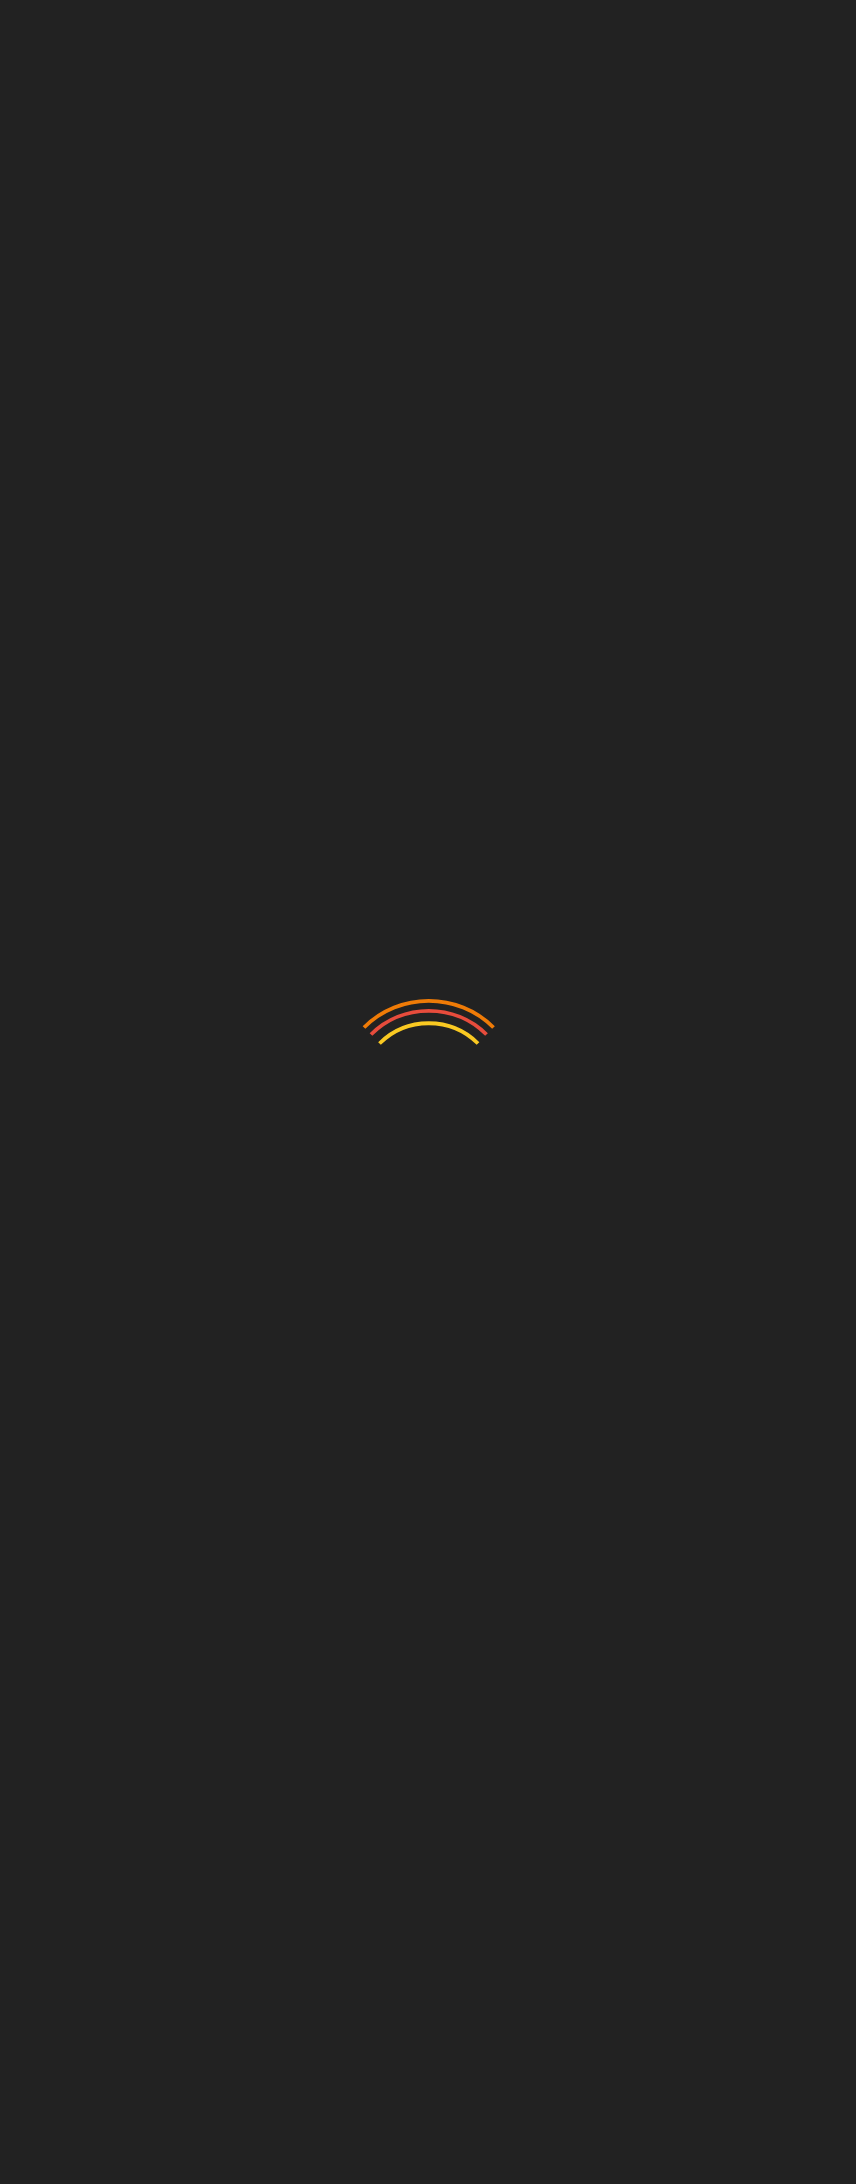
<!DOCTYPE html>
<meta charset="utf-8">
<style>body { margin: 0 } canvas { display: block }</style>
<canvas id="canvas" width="856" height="2184"></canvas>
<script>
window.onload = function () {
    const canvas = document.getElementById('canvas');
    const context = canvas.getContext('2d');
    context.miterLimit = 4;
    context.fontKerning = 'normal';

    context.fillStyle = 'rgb(34, 34, 34)';
    context.fillRect(0, 0, 856, 2184);
    context.beginPath();
    context.moveTo(364, 1027.5);
    context.bezierCurveTo(399.5, 992, 458, 992, 493.5, 1027.5);
    context.strokeStyle = 'rgb(239, 123, 7)';
    context.lineWidth = 3.8;
    context.stroke();
    context.beginPath();
    context.moveTo(371, 1034.5);
    context.bezierCurveTo(402.5, 1003, 455, 1003, 486.5, 1034.5);
    context.strokeStyle = 'rgb(231, 76, 60)';
    context.stroke();
    context.beginPath();
    context.moveTo(379.5, 1043.5);
    context.bezierCurveTo(406.5, 1016.5, 451, 1016.5, 478, 1043.5);
    context.strokeStyle = 'rgb(249, 201, 34)';
    context.stroke();
};
</script>
